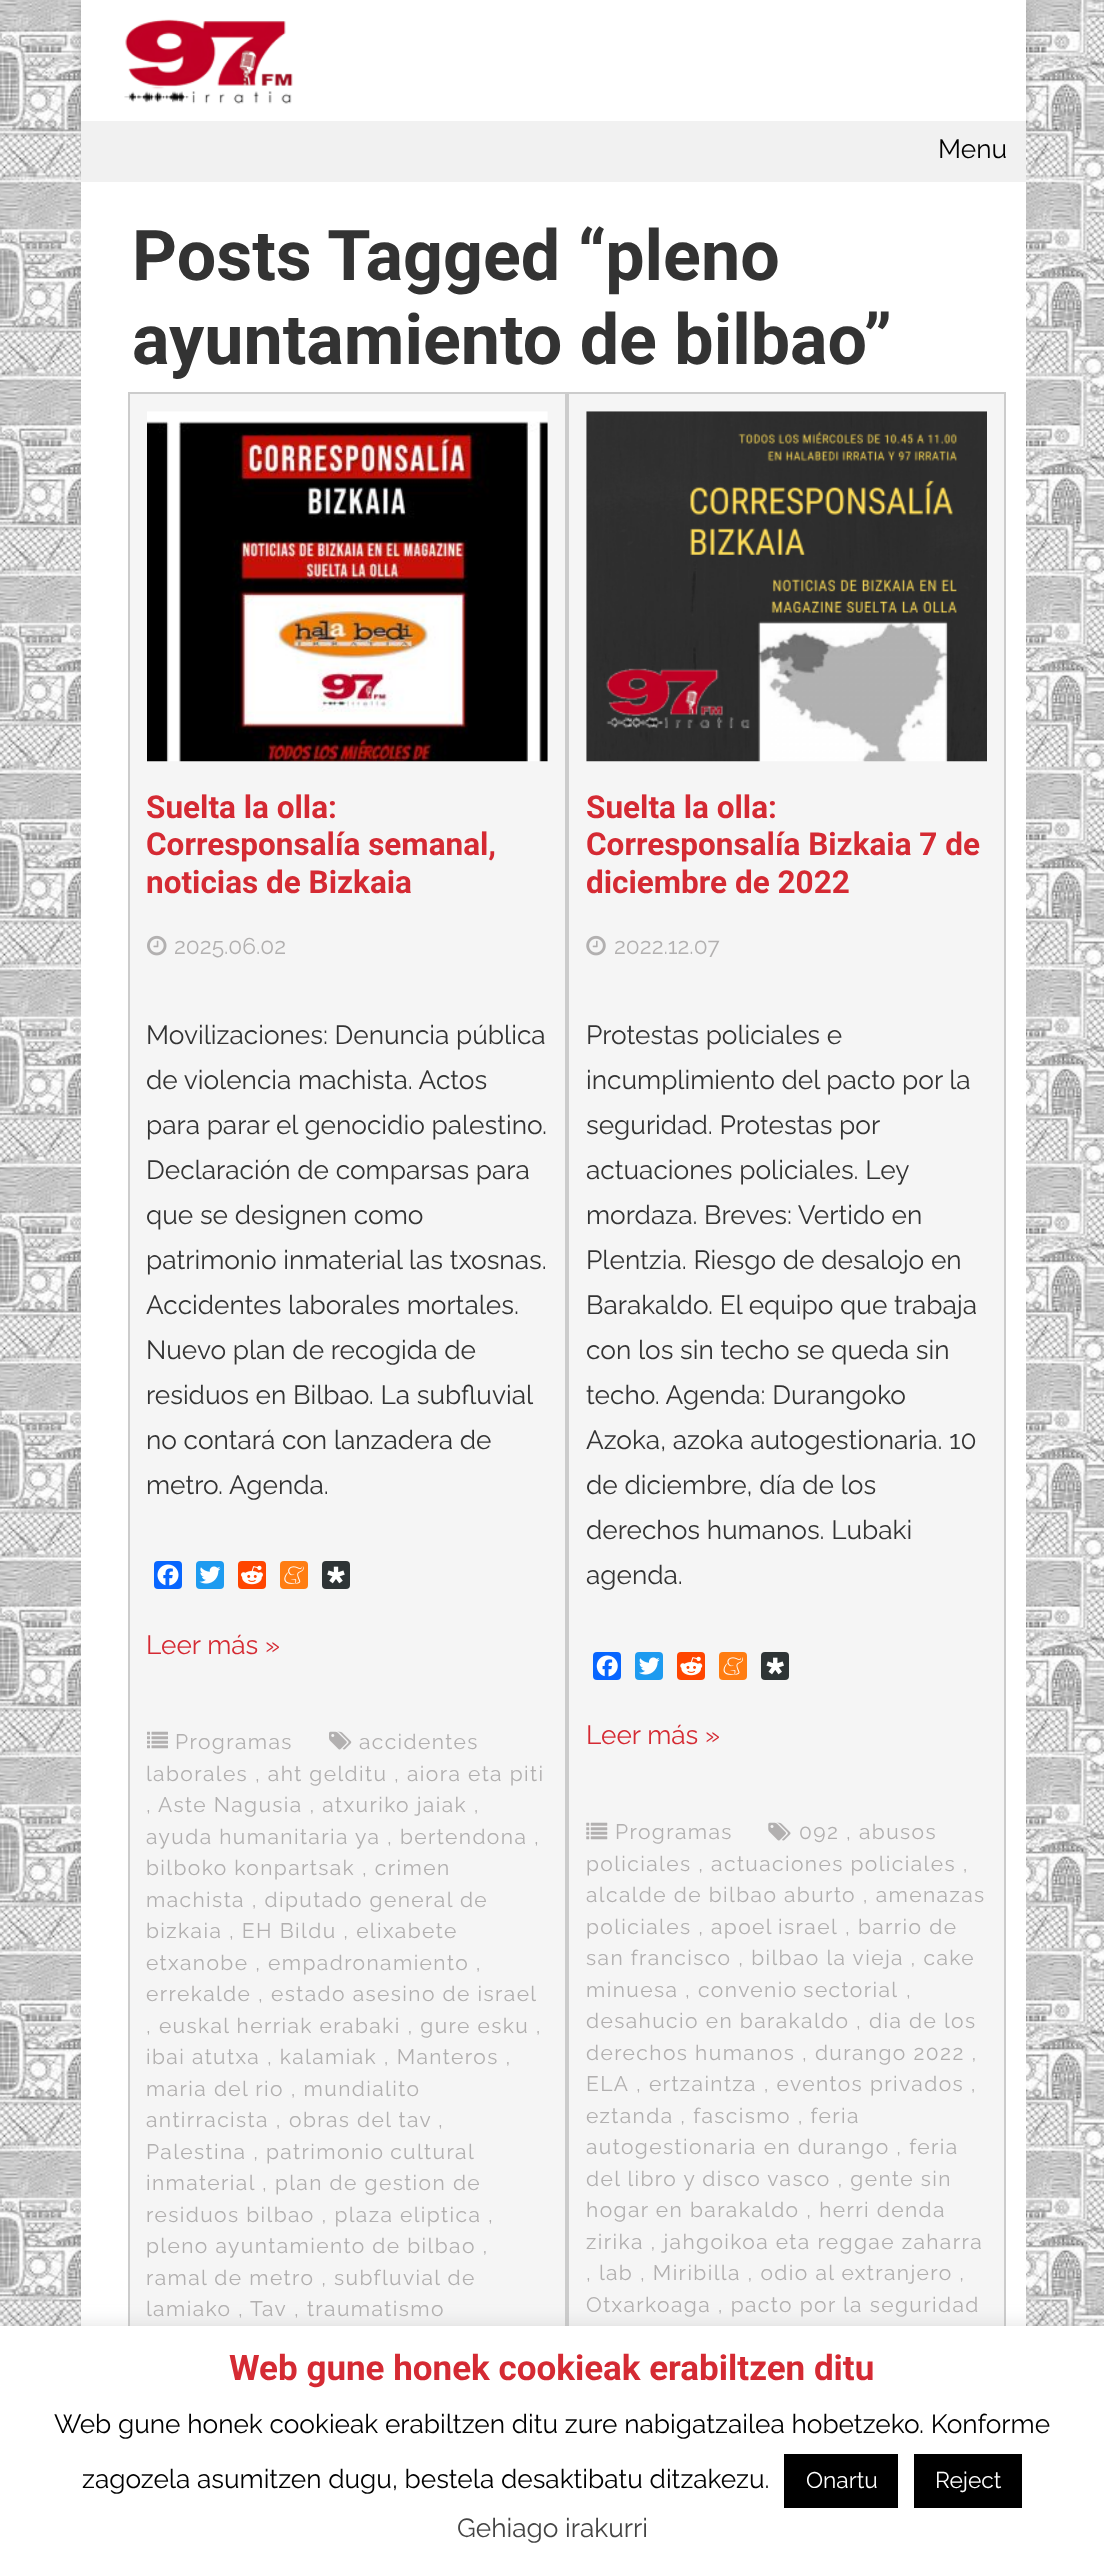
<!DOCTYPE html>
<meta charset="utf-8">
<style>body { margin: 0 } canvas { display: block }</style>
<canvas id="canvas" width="1104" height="2569"></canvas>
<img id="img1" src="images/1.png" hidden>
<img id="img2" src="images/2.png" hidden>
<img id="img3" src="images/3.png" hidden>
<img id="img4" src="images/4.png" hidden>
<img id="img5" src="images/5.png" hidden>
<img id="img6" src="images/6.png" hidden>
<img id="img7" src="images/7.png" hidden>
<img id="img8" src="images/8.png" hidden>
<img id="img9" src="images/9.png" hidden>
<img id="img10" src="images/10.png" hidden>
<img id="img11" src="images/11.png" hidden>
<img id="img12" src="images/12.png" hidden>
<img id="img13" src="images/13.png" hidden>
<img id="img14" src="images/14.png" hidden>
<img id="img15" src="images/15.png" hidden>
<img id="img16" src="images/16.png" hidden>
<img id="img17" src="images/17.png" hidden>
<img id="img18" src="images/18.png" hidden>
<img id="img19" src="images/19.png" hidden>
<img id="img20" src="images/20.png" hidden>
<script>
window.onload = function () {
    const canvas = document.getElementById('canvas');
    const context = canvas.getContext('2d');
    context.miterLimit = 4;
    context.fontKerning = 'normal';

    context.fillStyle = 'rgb(255, 255, 255)';
    context.fillRect(0, 0, 1104, 2569);
    context.drawImage(document.getElementById('img1'), 0, 0, 1104, 2326);
    context.fillStyle = 'rgba(100, 100, 100, 0.3)';
    context.filter = 'blur(5px)';
    context.beginPath();
    context.rect(81, 4, 945, 120);
    context.fill();
    context.filter = 'none';
    context.fillStyle = 'rgb(255, 255, 255)';
    context.fillRect(81, 0, 945, 121);
    context.drawImage(document.getElementById('img2'), 124, 19, 169, 85);
    context.fillStyle = 'rgb(241, 241, 241)';
    context.fillRect(81, 121, 945, 61);
    context.fillStyle = 'rgb(255, 255, 255)';
    context.fillRect(81, 182, 945, 2144);
    context.fillStyle = 'rgb(245, 245, 245)';
    context.fillRect(130, 394, 435, 1932);
    context.strokeStyle = 'rgb(204, 204, 204)';
    context.lineWidth = 2;
    context.strokeRect(129, 393, 437, 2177);
    context.drawImage(document.getElementById('img3'), 147, 411, 401, 351);
    context.drawImage(document.getElementById('img4'), 147, 935, 20, 21);
    context.fillStyle = 'rgb(8, 102, 255)';
    context.beginPath();
    context.roundRect(154, 1561, 28, 28, 4);
    context.fill();
    context.drawImage(document.getElementById('img5'), 157, 1564, 22, 22);
    context.fillStyle = 'rgb(29, 155, 240)';
    context.beginPath();
    context.roundRect(196, 1561, 28, 28, 4);
    context.fill();
    context.drawImage(document.getElementById('img6'), 199, 1566, 22, 18);
    context.fillStyle = 'rgb(255, 69, 0)';
    context.beginPath();
    context.roundRect(238, 1561, 28, 28, 4);
    context.fill();
    context.drawImage(document.getElementById('img7'), 241, 1565, 22, 20);
    context.fillStyle = 'rgb(255, 125, 18)';
    context.beginPath();
    context.roundRect(280, 1561, 28, 28, 4);
    context.fill();
    context.drawImage(document.getElementById('img8'), 284, 1566, 20, 18);
    context.fillStyle = 'rgb(46, 52, 54)';
    context.beginPath();
    context.roundRect(322, 1561, 28, 28, 4);
    context.fill();
    context.drawImage(document.getElementById('img9'), 327, 1566, 18, 18);
    context.drawImage(document.getElementById('img10'), 329, 1731, 23, 19);
    context.drawImage(document.getElementById('img11'), 147, 1731, 21, 18);
    context.fillStyle = 'rgb(245, 245, 245)';
    context.fillRect(569, 394, 435, 1932);
    context.strokeRect(568, 393, 437, 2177);
    context.drawImage(document.getElementById('img12'), 586, 411, 401, 351);
    context.drawImage(document.getElementById('img13'), 586, 935, 20, 21);
    context.fillStyle = 'rgb(8, 102, 255)';
    context.beginPath();
    context.roundRect(593, 1652, 28, 28, 4);
    context.fill();
    context.drawImage(document.getElementById('img14'), 596, 1655, 22, 22);
    context.fillStyle = 'rgb(29, 155, 240)';
    context.beginPath();
    context.roundRect(635, 1652, 28, 28, 4);
    context.fill();
    context.drawImage(document.getElementById('img15'), 639, 1657, 21, 18);
    context.fillStyle = 'rgb(255, 69, 0)';
    context.beginPath();
    context.roundRect(677, 1652, 28, 28, 4);
    context.fill();
    context.drawImage(document.getElementById('img16'), 680, 1656, 23, 20);
    context.fillStyle = 'rgb(255, 125, 18)';
    context.beginPath();
    context.roundRect(719, 1652, 28, 28, 4);
    context.fill();
    context.drawImage(document.getElementById('img17'), 723, 1657, 20, 18);
    context.fillStyle = 'rgb(46, 52, 54)';
    context.beginPath();
    context.roundRect(761, 1652, 28, 28, 4);
    context.fill();
    context.drawImage(document.getElementById('img18'), 766, 1657, 18, 18);
    context.drawImage(document.getElementById('img19'), 768, 1822, 23, 19);
    context.drawImage(document.getElementById('img20'), 586, 1822, 22, 18);
    context.fillStyle = 'rgba(172, 171, 171, 0.3)';
    context.filter = 'blur(9px)';
    context.beginPath();
    context.rect(0, 2324, 1104, 243);
    context.fill();
    context.filter = 'none';
    context.fillStyle = 'rgb(255, 255, 255)';
    context.fillRect(0, 2326, 1104, 243);
    context.fillStyle = 'rgb(0, 0, 0)';
    context.fillRect(784, 2454, 114, 54);
    context.fillRect(914, 2454, 108, 54);
    context.font = '100 26.25px Raleway';
    context.fillText('Menu', 938, 158);
    context.font = 'bold 70px Roboto';
    context.fillStyle = 'rgb(51, 51, 51)';
    context.fillText('Posts Tagged “pleno', 132, 280);
    context.fillText('ayuntamiento de bilbao”', 132, 364);
    context.font = 'bold 31.5px Roboto';
    context.fillStyle = 'rgb(213, 42, 51)';
    context.fillText('Suelta la olla:', 146, 818);
    context.fillText('Corresponsalía semanal,', 146, 855);
    context.fillText('noticias de Bizkaia', 146, 893);
    context.font = '100 22.75px Raleway';
    context.fillStyle = 'rgb(178, 176, 176)';
    context.fillText('2025.06.02', 174, 954);
    context.font = '100 26.25px Raleway';
    context.fillStyle = 'rgb(51, 51, 51)';
    context.fillText('Movilizaciones: Denuncia pública', 146, 1044);
    context.fillText('de violencia machista. Actos', 146, 1089);
    context.fillText('para parar el genocidio palestino.', 146, 1134);
    context.fillText('Declaración de comparsas para', 146, 1179);
    context.fillText('que se designen como', 146, 1224);
    context.fillText('patrimonio inmaterial las txosnas.', 146, 1269);
    context.fillText('Accidentes laborales mortales.', 146, 1314);
    context.fillText('Nuevo plan de recogida de', 146, 1359);
    context.fillText('residuos en Bilbao. La subfluvial', 146, 1404);
    context.fillText('no contará con lanzadera de', 146, 1449);
    context.fillText('metro. Agenda.', 146, 1494);
    context.fillStyle = 'rgb(213, 42, 51)';
    context.fillText('Leer más »', 146, 1654);
    context.letterSpacing = '1.4px';
    context.font = '100 21px Raleway';
    context.fillStyle = 'rgb(178, 176, 176)';
    context.fillText('accidentes', 359, 1749);
    context.fillText('laborales , aht gelditu , aiora eta piti', 146, 1781);
    context.fillText(',', 146, 1812);
    context.fillText('Aste Nagusia , atxuriko jaiak ,', 158, 1812);
    context.fillText('ayuda humanitaria ya , bertendona ,', 146, 1844);
    context.fillText('bilboko konpartsak , crimen', 146, 1875);
    context.fillText('machista , diputado general de', 146, 1907);
    context.fillText('bizkaia , EH Bildu , elixabete', 146, 1938);
    context.fillText('etxanobe , empadronamiento ,', 146, 1970);
    context.fillText('errekalde ,', 146, 2001);
    context.fillText('estado asesino de israel', 271, 2001);
    context.fillText(', euskal herriak erabaki , gure esku ,', 146, 2033);
    context.fillText('ibai atutxa , kalamiak , Manteros ,', 146, 2064);
    context.fillText('maria del rio , mundialito', 146, 2096);
    context.fillText('antirracista ,', 146, 2127);
    context.fillText('obras del tav', 289, 2127);
    context.fillText(',', 438, 2127);
    context.fillText('Palestina ,', 146, 2159);
    context.wordSpacing = '-1px';
    context.fillText('patrimonio cultural', 266, 2159);
    context.wordSpacing = '0px';
    context.fillText('inmaterial', 146, 2190);
    context.fillText(', plan de gestion de', 262, 2190);
    context.fillText('residuos bilbao , plaza eliptica ,', 146, 2222);
    context.fillText('pleno ayuntamiento de bilbao ,', 146, 2253);
    context.fillText('ramal de metro , subfluvial de', 146, 2285);
    context.fillText('lamiako ,', 146, 2316);
    context.fillText('Tav', 250, 2316);
    context.fillText(', traumatismo', 294, 2316);
    context.fillText('Programas', 175, 1749);
    context.letterSpacing = '0px';
    context.font = 'bold 31.5px Roboto';
    context.fillStyle = 'rgb(213, 42, 51)';
    context.fillText('Suelta la olla:', 586, 818);
    context.fillText('Corresponsalía Bizkaia 7 de', 586, 855);
    context.fillText('diciembre de 2022', 586, 893);
    context.font = '100 22.75px Raleway';
    context.fillStyle = 'rgb(178, 176, 176)';
    context.fillText('2022.12.07', 614, 954);
    context.font = '100 26.25px Raleway';
    context.fillStyle = 'rgb(51, 51, 51)';
    context.fillText('Protestas policiales e', 586, 1044);
    context.fillText('incumplimiento del pacto por la', 586, 1089);
    context.fillText('seguridad. Protestas por', 586, 1134);
    context.fillText('actuaciones policiales. Ley', 586, 1179);
    context.fillText('mordaza. Breves: Vertido en', 586, 1224);
    context.fillText('Plentzia. Riesgo de desalojo en', 586, 1269);
    context.fillText('Barakaldo. El equipo que trabaja', 586, 1314);
    context.fillText('con los sin techo se queda sin', 586, 1359);
    context.fillText('techo. Agenda: Durangoko', 586, 1404);
    context.fillText('Azoka, azoka autogestionaria. 10', 586, 1449);
    context.fillText('de diciembre, día de los', 586, 1494);
    context.fillText('derechos humanos. Lubaki', 586, 1539);
    context.fillText('agenda.', 586, 1584);
    context.fillStyle = 'rgb(213, 42, 51)';
    context.fillText('Leer más »', 586, 1744);
    context.letterSpacing = '1.4px';
    context.font = '100 21px Raleway';
    context.fillStyle = 'rgb(178, 176, 176)';
    context.fillText('092 , abusos', 799, 1839);
    context.fillText('policiales , actuaciones policiales ,', 586, 1871);
    context.fillText('alcalde de bilbao aburto , amenazas', 586, 1902);
    context.fillText('policiales ,', 586, 1934);
    context.wordSpacing = '-1px';
    context.fillText('apoel israel', 711, 1934);
    context.wordSpacing = '0px';
    context.fillText(', barrio de', 845, 1934);
    context.fillText('san francisco , bilbao la vieja , cake', 586, 1965);
    context.fillText('minuesa ,', 586, 1997);
    context.wordSpacing = '-1px';
    context.fillText('convenio sectorial', 698, 1997);
    context.wordSpacing = '0px';
    context.fillText(',', 906, 1997);
    context.fillText('desahucio en barakaldo , dia de los', 586, 2028);
    context.fillText('derechos humanos , durango 2022 ,', 586, 2060);
    context.fillText('ELA', 586, 2091);
    context.fillText(', ertzaintza , eventos privados ,', 636, 2091);
    context.fillText('eztanda , fascismo , feria', 586, 2123);
    context.fillText('autogestionaria en durango , feria', 586, 2154);
    context.fillText('del libro y disco vasco , gente sin', 586, 2186);
    context.fillText('hogar en barakaldo , herri denda', 586, 2217);
    context.fillText('zirika , jahgoikoa eta reggae zaharra', 586, 2249);
    context.fillText(', lab , Miribilla , odio al extranjero ,', 586, 2280);
    context.fillText('Otxarkoaga , pacto por la seguridad', 586, 2312);
    context.fillText('Programas', 615, 1839);
    context.letterSpacing = '0px';
    context.font = 'bold 35px Roboto';
    context.fillStyle = 'rgb(213, 42, 51)';
    context.fillText('Web gune honek cookieak erabiltzen ditu', 229, 2380);
    context.font = '100 26.25px Raleway';
    context.fillStyle = 'rgb(0, 0, 0)';
    context.fillText('Web gune honek cookieak erabiltzen ditu zure nabigatzailea hobetzeko. Konforme', 54, 2433);
    context.fillText('zagozela asumitzen dugu, bestela desaktibatu ditzakezu.', 82, 2488);
    context.font = '100 22.75px Raleway';
    context.fillStyle = 'rgb(255, 255, 255)';
    context.fillText('Onartu', 806, 2488);
    context.fillText('Reject', 935, 2488);
    context.font = '100 26.25px Raleway';
    context.fillStyle = 'rgb(68, 68, 68)';
    context.fillText('Gehiago irakurri', 457, 2537);
};
</script>
